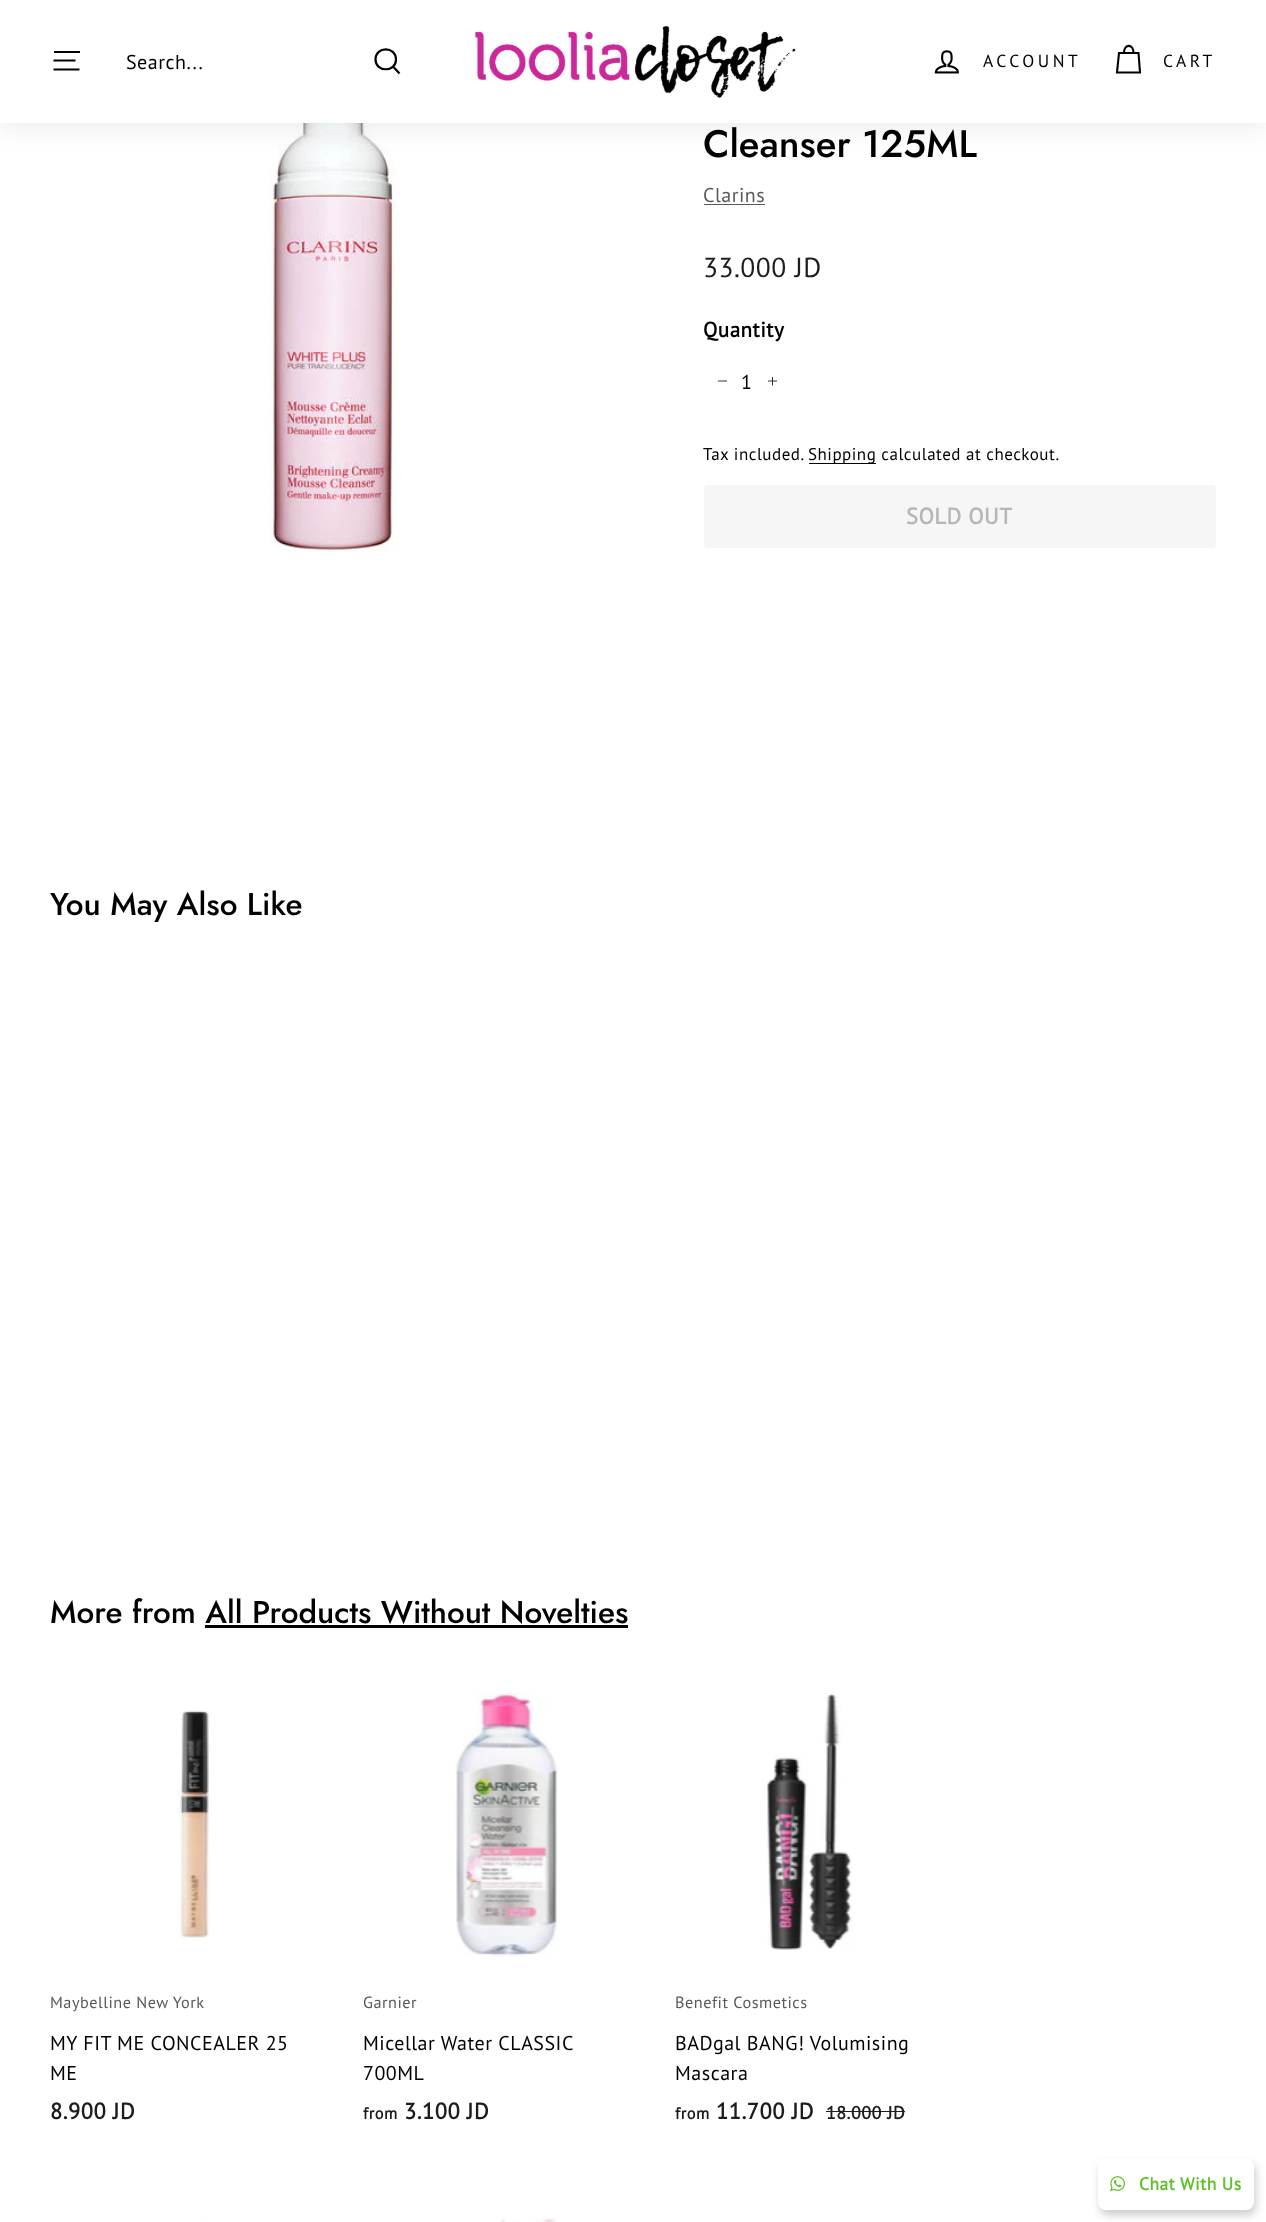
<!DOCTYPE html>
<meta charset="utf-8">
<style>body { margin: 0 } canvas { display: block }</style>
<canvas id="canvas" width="1266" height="2222"></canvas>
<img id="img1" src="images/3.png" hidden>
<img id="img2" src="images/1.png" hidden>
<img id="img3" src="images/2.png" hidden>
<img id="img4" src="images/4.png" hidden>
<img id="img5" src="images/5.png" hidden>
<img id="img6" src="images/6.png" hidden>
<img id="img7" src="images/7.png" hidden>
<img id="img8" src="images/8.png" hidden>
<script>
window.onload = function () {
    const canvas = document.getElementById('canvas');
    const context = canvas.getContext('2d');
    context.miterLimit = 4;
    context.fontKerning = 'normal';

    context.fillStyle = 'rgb(255, 255, 255)';
    context.fillRect(0, 0, 1266, 2222);
    context.drawImage(document.getElementById('img1'), 269, 123, 128, 429);
    context.fillStyle = 'rgba(0, 0, 0, 0.1)';
    context.filter = 'blur(15.5px)';
    context.beginPath();
    context.rect(0, 0, 1266, 123);
    context.fill();
    context.filter = 'none';
    context.fillStyle = 'rgb(255, 255, 255)';
    context.fillRect(0, 0, 1266, 123);
    context.fillStyle = 'rgb(0, 0, 0)';
    context.fillRect(54, 51, 26, 2);
    context.beginPath();
    context.moveTo(53.5, 60.5);
    context.lineTo(75.5, 60.5);
    context.moveTo(53.5, 69.5);
    context.lineTo(79.5, 69.5);
    context.strokeStyle = 'rgb(0, 0, 0)';
    context.lineWidth = 2;
    context.stroke();
    context.beginPath();
    context.moveTo(396, 59.5);
    context.bezierCurveTo(396, 72.5, 375.5, 72.5, 375.5, 59.5);
    context.bezierCurveTo(375.5, 46, 396, 46, 396, 59.5);
    context.closePath();
    context.moveTo(399.5, 73.5);
    context.lineTo(393, 66.5);
    context.lineWidth = 2.2;
    context.stroke();
    context.drawImage(document.getElementById('img2'), 474, 26, 322, 73);
    context.drawImage(document.getElementById('img3'), 934, 50, 25, 24);
    context.beginPath();
    context.moveTo(1124, 53);
    context.bezierCurveTo(1124, 43.5, 1133.5, 43.5, 1133.5, 53);
    context.moveTo(1119, 53);
    context.lineTo(1138.5, 53);
    context.lineTo(1140, 72.5);
    context.lineTo(1117, 72.5);
    context.closePath();
    context.lineWidth = 2.1;
    context.stroke();
    context.fillStyle = 'rgb(89, 89, 89)';
    context.fillRect(704, 204, 61, 1);
    context.beginPath();
    context.moveTo(727, 381);
    context.lineTo(718, 381);
    context.moveTo(772.5, 377);
    context.lineTo(772.5, 385.5);
    context.moveTo(777, 381);
    context.lineTo(768, 381);
    context.lineWidth = 0.8;
    context.stroke();
    context.fillStyle = 'rgb(0, 0, 0)';
    context.fillRect(809, 463, 67, 1);
    context.fillStyle = 'rgb(246, 246, 246)';
    context.beginPath();
    context.roundRect(704, 485, 512, 63, 4);
    context.fill();
    context.fillStyle = 'rgb(0, 0, 0)';
    context.fillRect(205, 1625, 423, 3);
    context.drawImage(document.getElementById('img4'), 177, 1710, 34, 229);
    context.drawImage(document.getElementById('img5'), 455, 1692, 103, 264);
    context.drawImage(document.getElementById('img6'), 766, 1693, 87, 257);
    context.fillStyle = 'rgb(28, 29, 29)';
    context.fillRect(826, 2111, 79, 1);
    context.fillStyle = 'rgb(254, 254, 249)';
    context.fillRect(204, 2221, 5, 1);
    context.drawImage(document.getElementById('img7'), 500, 2217, 56, 5);
    context.fillStyle = 'rgba(0, 0, 0, 0.2)';
    context.filter = 'blur(4.5px)';
    context.beginPath();
    context.roundRect(1100, 2164, 156, 51, 8);
    context.fill();
    context.filter = 'none';
    context.fillStyle = 'rgb(255, 255, 255)';
    context.beginPath();
    context.roundRect(1098, 2159, 156, 51, 8);
    context.fill();
    context.drawImage(document.getElementById('img8'), 1110, 2176, 15, 16);
    context.letterSpacing = '0.5px';
    context.font = '20px PT Sans';
    context.fillStyle = 'rgb(0, 0, 0)';
    context.fillText('Search...', 126, 69);
    context.letterSpacing = '3.5px';
    context.font = '17.5px PT Sans';
    context.fillText('ACCOUNT', 983, 67);
    context.fillText('CART', 1163, 67);
    context.letterSpacing = '0px';
    context.font = '500 38.25px Jost';
    context.fillText('Cleanser 125ML', 703, 157);
    context.letterSpacing = '0.5px';
    context.font = '20px PT Sans';
    context.fillStyle = 'rgb(89, 89, 89)';
    context.fillText('Clarins', 703, 202);
    context.font = '27.5px PT Sans';
    context.fillStyle = 'rgb(28, 29, 29)';
    context.fillText('33.000 JD', 703, 277);
    context.font = 'bold 21px PT Sans';
    context.fillStyle = 'rgb(0, 0, 0)';
    context.fillText('Quantity', 703, 337);
    context.font = '20px PT Sans';
    context.fillText('1', 741, 389);
    context.font = '17px PT Sans';
    context.fillText('Tax included.', 703, 460);
    context.fillText('Shipping calculated at checkout.', 808, 460);
    context.font = 'bold 22.5px PT Sans';
    context.fillStyle = 'rgb(182, 182, 182)';
    context.fillText('SOLD OUT', 906, 524);
    context.letterSpacing = '0px';
    context.font = '500 31.5px Jost';
    context.fillStyle = 'rgb(0, 0, 0)';
    context.fillText('You May Also Like', 50, 915);
    context.fillText('More from All Products Without Novelties', 50, 1623);
    context.letterSpacing = '0.5px';
    context.font = '16.25px PT Sans';
    context.fillStyle = 'rgb(89, 89, 89)';
    context.fillText('Maybelline New York', 50, 2008);
    context.font = '20px PT Sans';
    context.fillStyle = 'rgb(0, 0, 0)';
    context.fillText('MY FIT ME CONCEALER 25', 50, 2050);
    context.fillText('ME', 50, 2080);
    context.font = 'bold 22.5px PT Sans';
    context.fillStyle = 'rgb(28, 29, 29)';
    context.fillText('8.900 JD', 50, 2119);
    context.font = '16.25px PT Sans';
    context.fillStyle = 'rgb(89, 89, 89)';
    context.fillText('Garnier', 363, 2008);
    context.font = '20px PT Sans';
    context.fillStyle = 'rgb(0, 0, 0)';
    context.fillText('Micellar Water CLASSIC', 363, 2050);
    context.fillText('700ML', 363, 2080);
    context.font = 'bold 16.25px PT Sans';
    context.fillStyle = 'rgb(28, 29, 29)';
    context.fillText('from', 363, 2119);
    context.font = 'bold 22.5px PT Sans';
    context.fillText('3.100 JD', 404, 2119);
    context.font = '16.25px PT Sans';
    context.fillStyle = 'rgb(89, 89, 89)';
    context.fillText('Benefit Cosmetics', 675, 2008);
    context.font = '20px PT Sans';
    context.fillStyle = 'rgb(0, 0, 0)';
    context.fillText('BADgal BANG! Volumising', 675, 2050);
    context.fillText('Mascara', 675, 2080);
    context.font = 'bold 16.25px PT Sans';
    context.fillStyle = 'rgb(28, 29, 29)';
    context.fillText('from', 675, 2119);
    context.font = 'bold 22.5px PT Sans';
    context.fillText('11.700 JD', 716, 2119);
    context.font = 'bold 18px PT Sans';
    context.fillText('18.000 JD', 826, 2119);
    context.font = 'bold 17.5px PT Sans';
    context.fillStyle = 'rgb(94, 193, 39)';
    context.fillText('Chat With Us', 1139, 2190);
};
</script>
